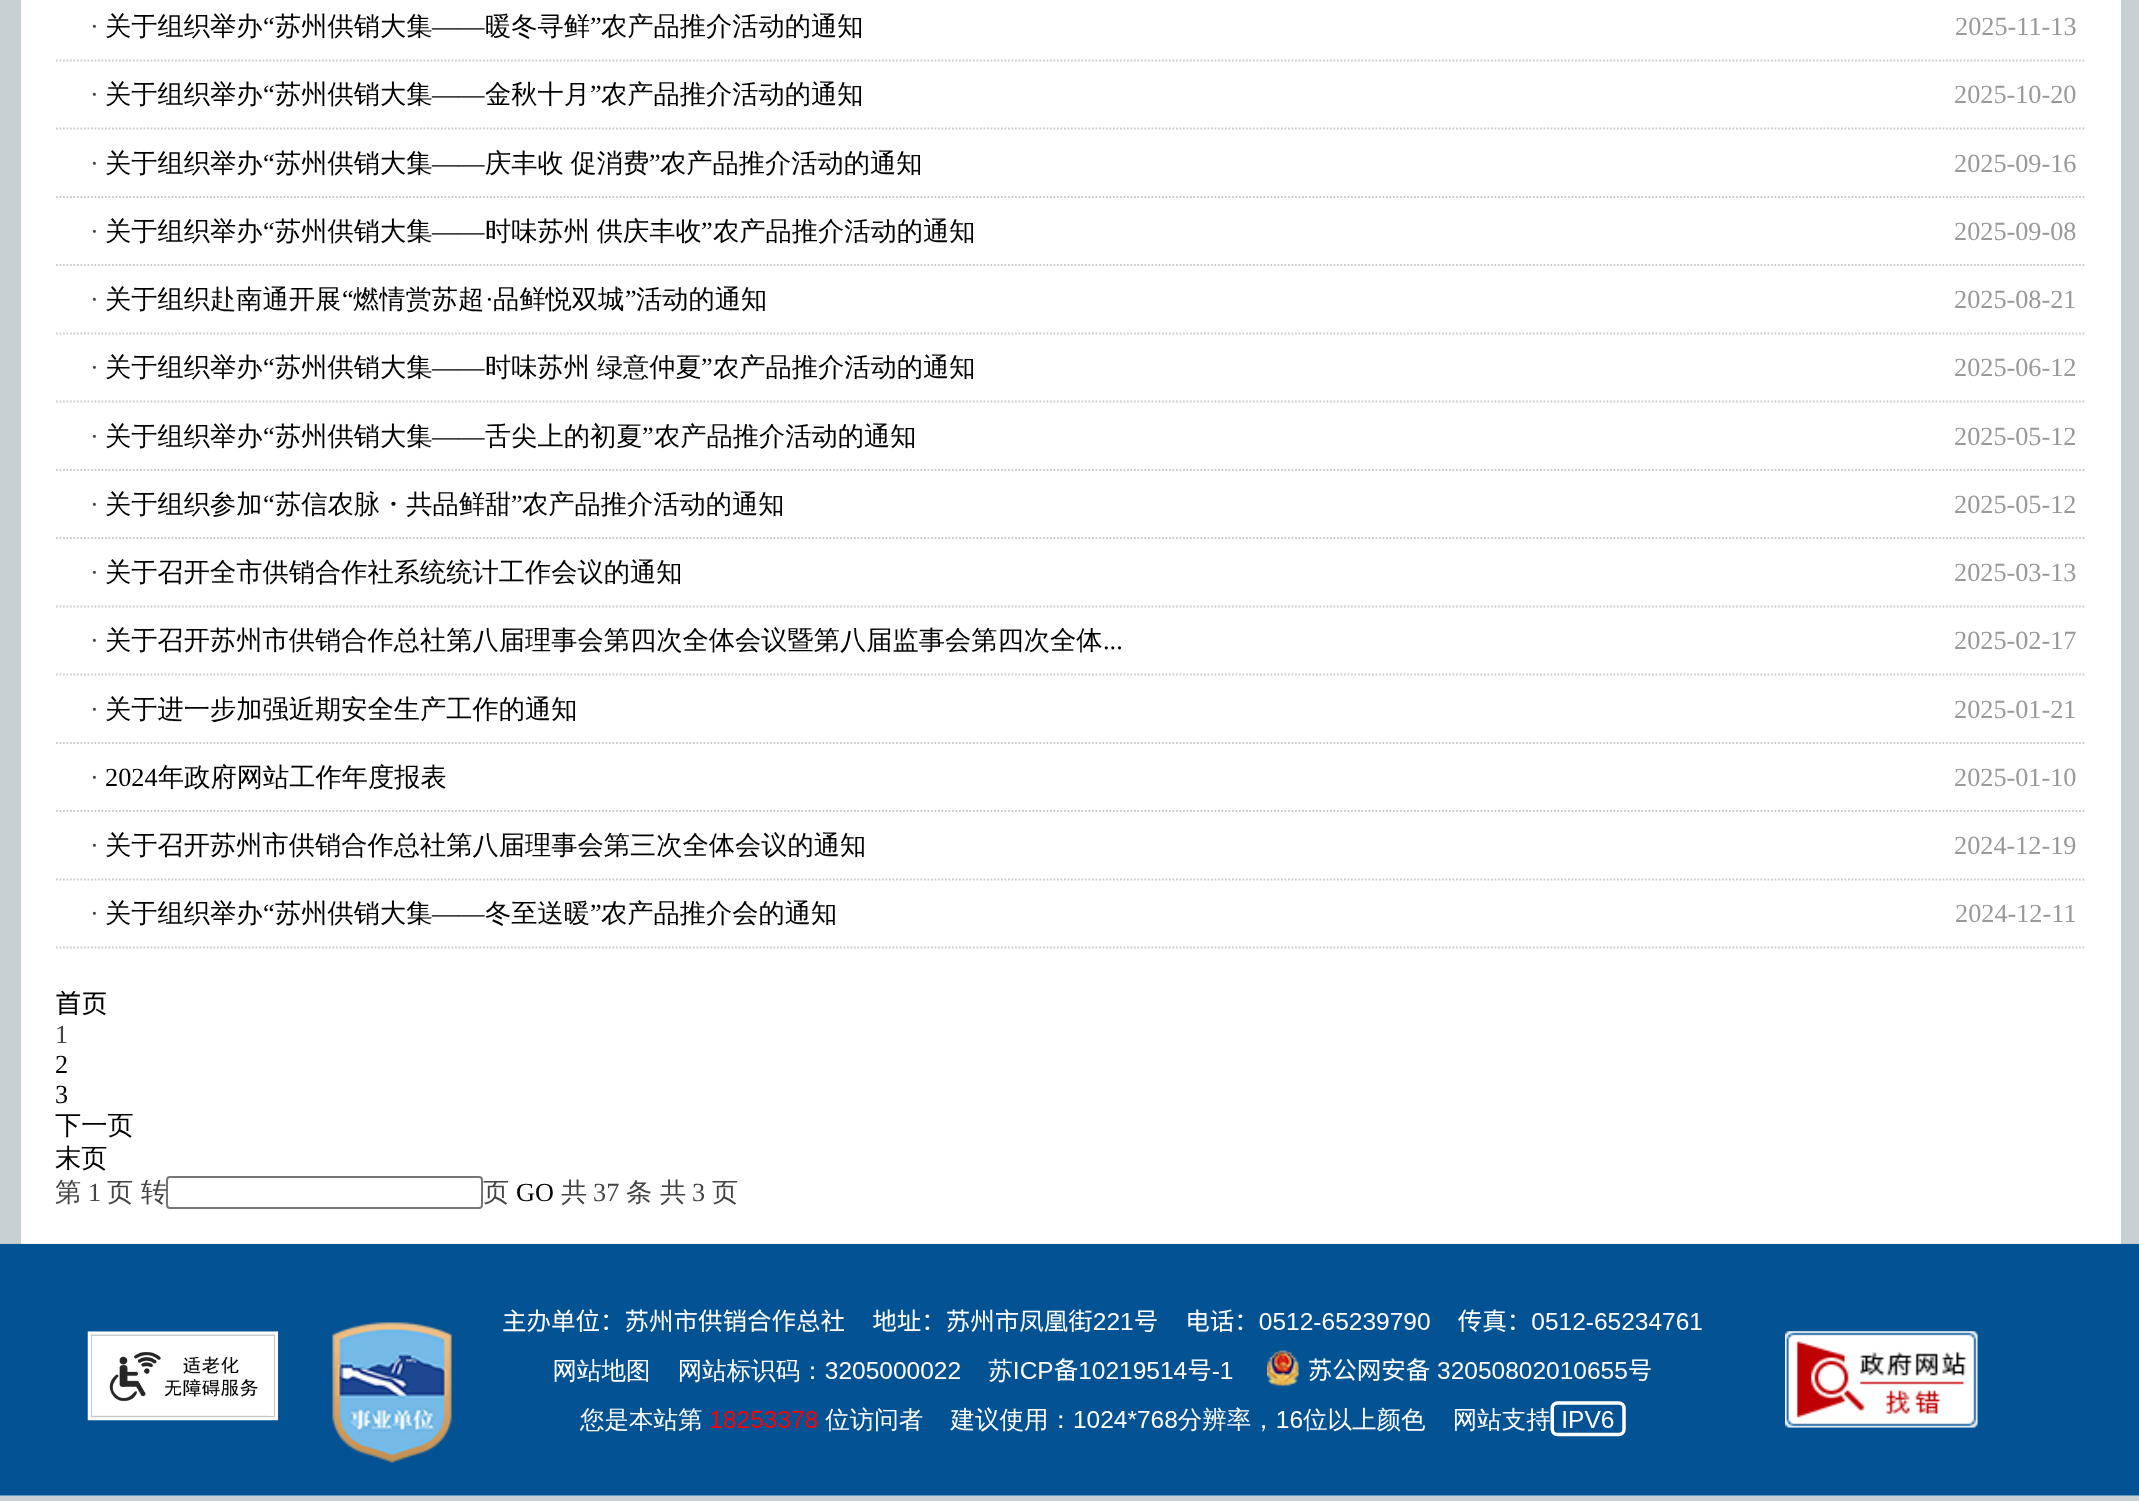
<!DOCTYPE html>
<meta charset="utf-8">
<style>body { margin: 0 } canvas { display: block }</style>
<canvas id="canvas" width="2139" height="1501"></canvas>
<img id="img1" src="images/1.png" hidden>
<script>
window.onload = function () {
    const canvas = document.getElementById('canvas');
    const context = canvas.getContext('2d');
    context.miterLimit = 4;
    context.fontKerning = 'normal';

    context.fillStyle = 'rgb(200, 208, 211)';
    context.fillRect(0, 0, 2139, 1501);
    context.fillStyle = 'rgb(255, 255, 255)';
    context.fillRect(21, 0, 2100, 1244);
    context.beginPath();
    context.moveTo(56, 60.5);
    context.lineTo(2086, 60.5);
    context.strokeStyle = 'rgb(204, 204, 204)';
    context.lineWidth = 1.8;
    context.setLineDash([1.75, 1.75]);
    context.stroke();
    context.beginPath();
    context.moveTo(56, 128.5);
    context.lineTo(2086, 128.5);
    context.stroke();
    context.beginPath();
    context.moveTo(56, 197);
    context.lineTo(2086, 197);
    context.stroke();
    context.beginPath();
    context.moveTo(56, 265);
    context.lineTo(2086, 265);
    context.stroke();
    context.beginPath();
    context.moveTo(56, 333.5);
    context.lineTo(2086, 333.5);
    context.stroke();
    context.beginPath();
    context.moveTo(56, 401.5);
    context.lineTo(2086, 401.5);
    context.stroke();
    context.beginPath();
    context.moveTo(56, 470);
    context.lineTo(2086, 470);
    context.stroke();
    context.beginPath();
    context.moveTo(56, 538);
    context.lineTo(2086, 538);
    context.stroke();
    context.beginPath();
    context.moveTo(56, 606.5);
    context.lineTo(2086, 606.5);
    context.stroke();
    context.beginPath();
    context.moveTo(56, 674.5);
    context.lineTo(2086, 674.5);
    context.stroke();
    context.beginPath();
    context.moveTo(56, 743);
    context.lineTo(2086, 743);
    context.stroke();
    context.beginPath();
    context.moveTo(56, 811);
    context.lineTo(2086, 811);
    context.stroke();
    context.beginPath();
    context.moveTo(56, 879.5);
    context.lineTo(2086, 879.5);
    context.stroke();
    context.beginPath();
    context.moveTo(56, 947.5);
    context.lineTo(2086, 947.5);
    context.stroke();
    context.beginPath();
    context.roundRect(167, 1177, 315, 31, 3);
    context.strokeStyle = 'rgb(118, 118, 118)';
    context.lineWidth = 2;
    context.setLineDash([]);
    context.stroke();
    context.drawImage(document.getElementById('img1'), 0, 1243, 2139, 253);
    context.font = '26.25px Liberation Serif';
    context.fillStyle = 'rgb(68, 68, 68)';
    context.fillText('·', 90, 35);
    context.font = '500 26.25px WenQuanYi Zen Hei';
    context.fillStyle = 'rgb(0, 0, 0)';
    context.fillText('关于组织举办', 105, 35);
    context.font = '26.25px Liberation Serif';
    context.fillText('“', 263, 35);
    context.font = '500 26.25px WenQuanYi Zen Hei';
    context.fillText('苏州供销大集', 275, 35);
    context.fillText('暖冬寻鲜', 485, 35);
    context.font = '26.25px Liberation Serif';
    context.fillText('”', 590, 35);
    context.font = '500 26.25px WenQuanYi Zen Hei';
    context.fillText('农产品推介活动的通知', 601, 35);
    context.font = '26.25px Liberation Serif';
    context.fillStyle = 'rgb(153, 153, 153)';
    context.fillText('2025-11-13', 1955, 35);
    context.fillStyle = 'rgb(0, 0, 0)';
    context.fillText('——', 432, 35);
    context.fillStyle = 'rgb(68, 68, 68)';
    context.fillText('·', 90, 103);
    context.font = '500 26.25px WenQuanYi Zen Hei';
    context.fillStyle = 'rgb(0, 0, 0)';
    context.fillText('关于组织举办', 105, 103);
    context.font = '26.25px Liberation Serif';
    context.fillText('“', 263, 103);
    context.font = '500 26.25px WenQuanYi Zen Hei';
    context.fillText('苏州供销大集', 275, 103);
    context.fillText('金秋十月', 485, 103);
    context.font = '26.25px Liberation Serif';
    context.fillText('”', 590, 103);
    context.font = '500 26.25px WenQuanYi Zen Hei';
    context.fillText('农产品推介活动的通知', 601, 103);
    context.font = '26.25px Liberation Serif';
    context.fillStyle = 'rgb(153, 153, 153)';
    context.fillText('2025-10-20', 1954, 103);
    context.fillStyle = 'rgb(0, 0, 0)';
    context.fillText('——', 432, 103);
    context.fillStyle = 'rgb(68, 68, 68)';
    context.fillText('·', 90, 172);
    context.font = '500 26.25px WenQuanYi Zen Hei';
    context.fillStyle = 'rgb(0, 0, 0)';
    context.fillText('关于组织举办', 105, 172);
    context.font = '26.25px Liberation Serif';
    context.fillText('“', 263, 172);
    context.font = '500 26.25px WenQuanYi Zen Hei';
    context.fillText('苏州供销大集', 275, 172);
    context.wordSpacing = '-1px';
    context.fillText('庆丰收 促消费', 485, 172);
    context.wordSpacing = '0px';
    context.font = '26.25px Liberation Serif';
    context.fillText('”', 649, 172);
    context.font = '500 26.25px WenQuanYi Zen Hei';
    context.fillText('农产品推介活动的通知', 660, 172);
    context.font = '26.25px Liberation Serif';
    context.fillStyle = 'rgb(153, 153, 153)';
    context.fillText('2025-09-16', 1954, 172);
    context.fillStyle = 'rgb(0, 0, 0)';
    context.fillText('——', 432, 172);
    context.fillStyle = 'rgb(68, 68, 68)';
    context.fillText('·', 90, 240);
    context.font = '500 26.25px WenQuanYi Zen Hei';
    context.fillStyle = 'rgb(0, 0, 0)';
    context.fillText('关于组织举办', 105, 240);
    context.font = '26.25px Liberation Serif';
    context.fillText('“', 263, 240);
    context.font = '500 26.25px WenQuanYi Zen Hei';
    context.fillText('苏州供销大集', 275, 240);
    context.wordSpacing = '-1px';
    context.fillText('时味苏州 供庆丰收', 485, 240);
    context.wordSpacing = '0px';
    context.font = '26.25px Liberation Serif';
    context.fillText('”', 701, 240);
    context.font = '500 26.25px WenQuanYi Zen Hei';
    context.fillText('农产品推介活动的通知', 713, 240);
    context.font = '26.25px Liberation Serif';
    context.fillStyle = 'rgb(153, 153, 153)';
    context.fillText('2025-09-08', 1954, 240);
    context.fillStyle = 'rgb(0, 0, 0)';
    context.fillText('——', 432, 240);
    context.fillStyle = 'rgb(68, 68, 68)';
    context.fillText('·', 90, 308);
    context.font = '500 26.25px WenQuanYi Zen Hei';
    context.fillStyle = 'rgb(0, 0, 0)';
    context.fillText('关于组织赴南通开展', 105, 308);
    context.font = '26.25px Liberation Serif';
    context.fillText('“', 342, 308);
    context.font = '500 26.25px WenQuanYi Zen Hei';
    context.fillText('燃情赏苏超', 353, 308);
    context.font = '26.25px Liberation Serif';
    context.fillText('·', 485, 308);
    context.font = '500 26.25px WenQuanYi Zen Hei';
    context.fillText('品鲜悦双城', 493, 308);
    context.font = '26.25px Liberation Serif';
    context.fillText('”', 625, 308);
    context.font = '500 26.25px WenQuanYi Zen Hei';
    context.fillText('活动的通知', 636, 308);
    context.font = '26.25px Liberation Serif';
    context.fillStyle = 'rgb(153, 153, 153)';
    context.fillText('2025-08-21', 1954, 308);
    context.fillStyle = 'rgb(68, 68, 68)';
    context.fillText('·', 90, 376);
    context.font = '500 26.25px WenQuanYi Zen Hei';
    context.fillStyle = 'rgb(0, 0, 0)';
    context.fillText('关于组织举办', 105, 376);
    context.font = '26.25px Liberation Serif';
    context.fillText('“', 263, 376);
    context.font = '500 26.25px WenQuanYi Zen Hei';
    context.fillText('苏州供销大集', 275, 376);
    context.wordSpacing = '-1px';
    context.fillText('时味苏州 绿意仲夏', 485, 376);
    context.wordSpacing = '0px';
    context.font = '26.25px Liberation Serif';
    context.fillText('”', 701, 376);
    context.font = '500 26.25px WenQuanYi Zen Hei';
    context.fillText('农产品推介活动的通知', 713, 376);
    context.font = '26.25px Liberation Serif';
    context.fillStyle = 'rgb(153, 153, 153)';
    context.fillText('2025-06-12', 1954, 376);
    context.fillStyle = 'rgb(0, 0, 0)';
    context.fillText('——', 432, 376);
    context.fillStyle = 'rgb(68, 68, 68)';
    context.fillText('·', 90, 445);
    context.font = '500 26.25px WenQuanYi Zen Hei';
    context.fillStyle = 'rgb(0, 0, 0)';
    context.fillText('关于组织举办', 105, 445);
    context.font = '26.25px Liberation Serif';
    context.fillText('“', 263, 445);
    context.font = '500 26.25px WenQuanYi Zen Hei';
    context.fillText('苏州供销大集', 275, 445);
    context.fillText('舌尖上的初夏', 485, 445);
    context.font = '26.25px Liberation Serif';
    context.fillText('”', 642, 445);
    context.font = '500 26.25px WenQuanYi Zen Hei';
    context.fillText('农产品推介活动的通知', 654, 445);
    context.font = '26.25px Liberation Serif';
    context.fillStyle = 'rgb(153, 153, 153)';
    context.fillText('2025-05-12', 1954, 445);
    context.fillStyle = 'rgb(0, 0, 0)';
    context.fillText('——', 432, 445);
    context.fillStyle = 'rgb(68, 68, 68)';
    context.fillText('·', 90, 513);
    context.font = '500 26.25px WenQuanYi Zen Hei';
    context.fillStyle = 'rgb(0, 0, 0)';
    context.fillText('关于组织参加', 105, 513);
    context.font = '26.25px Liberation Serif';
    context.fillText('“', 263, 513);
    context.font = '500 26.25px WenQuanYi Zen Hei';
    context.fillText('苏信农脉・共品鲜甜', 275, 513);
    context.font = '26.25px Liberation Serif';
    context.fillText('”', 511, 513);
    context.font = '500 26.25px WenQuanYi Zen Hei';
    context.fillText('农产品推介活动的通知', 522, 513);
    context.font = '26.25px Liberation Serif';
    context.fillStyle = 'rgb(153, 153, 153)';
    context.fillText('2025-05-12', 1954, 513);
    context.fillStyle = 'rgb(68, 68, 68)';
    context.fillText('·', 90, 581);
    context.font = '500 26.25px WenQuanYi Zen Hei';
    context.fillStyle = 'rgb(0, 0, 0)';
    context.fillText('关于召开全市供销合作社系统统计工作会议的通知', 105, 581);
    context.font = '26.25px Liberation Serif';
    context.fillStyle = 'rgb(153, 153, 153)';
    context.fillText('2025-03-13', 1954, 581);
    context.fillStyle = 'rgb(68, 68, 68)';
    context.fillText('·', 90, 649);
    context.font = '500 26.25px WenQuanYi Zen Hei';
    context.fillStyle = 'rgb(0, 0, 0)';
    context.fillText('关于召开苏州市供销合作总社第八届理事会第四次全体会议暨第八届监事会第四次全体', 105, 649);
    context.font = '26.25px Liberation Serif';
    context.fillStyle = 'rgb(153, 153, 153)';
    context.fillText('2025-02-17', 1954, 649);
    context.fillStyle = 'rgb(0, 0, 0)';
    context.fillText('...', 1103, 649);
    context.fillStyle = 'rgb(68, 68, 68)';
    context.fillText('·', 90, 718);
    context.font = '500 26.25px WenQuanYi Zen Hei';
    context.fillStyle = 'rgb(0, 0, 0)';
    context.fillText('关于进一步加强近期安全生产工作的通知', 105, 718);
    context.font = '26.25px Liberation Serif';
    context.fillStyle = 'rgb(153, 153, 153)';
    context.fillText('2025-01-21', 1954, 718);
    context.fillStyle = 'rgb(68, 68, 68)';
    context.fillText('·', 90, 786);
    context.fillStyle = 'rgb(0, 0, 0)';
    context.fillText('2024', 105, 786);
    context.font = '500 26.25px WenQuanYi Zen Hei';
    context.fillText('年政府网站工作年度报表', 158, 786);
    context.font = '26.25px Liberation Serif';
    context.fillStyle = 'rgb(153, 153, 153)';
    context.fillText('2025-01-10', 1954, 786);
    context.fillStyle = 'rgb(68, 68, 68)';
    context.fillText('·', 90, 854);
    context.font = '500 26.25px WenQuanYi Zen Hei';
    context.fillStyle = 'rgb(0, 0, 0)';
    context.fillText('关于召开苏州市供销合作总社第八届理事会第三次全体会议的通知', 105, 854);
    context.font = '26.25px Liberation Serif';
    context.fillStyle = 'rgb(153, 153, 153)';
    context.fillText('2024-12-19', 1954, 854);
    context.fillStyle = 'rgb(68, 68, 68)';
    context.fillText('·', 90, 922);
    context.font = '500 26.25px WenQuanYi Zen Hei';
    context.fillStyle = 'rgb(0, 0, 0)';
    context.fillText('关于组织举办', 105, 922);
    context.font = '26.25px Liberation Serif';
    context.fillText('“', 263, 922);
    context.font = '500 26.25px WenQuanYi Zen Hei';
    context.fillText('苏州供销大集', 275, 922);
    context.fillText('冬至送暖', 485, 922);
    context.font = '26.25px Liberation Serif';
    context.fillText('”', 590, 922);
    context.font = '500 26.25px WenQuanYi Zen Hei';
    context.fillText('农产品推介会的通知', 601, 922);
    context.font = '26.25px Liberation Serif';
    context.fillStyle = 'rgb(153, 153, 153)';
    context.fillText('2024-12-11', 1955, 922);
    context.fillStyle = 'rgb(0, 0, 0)';
    context.fillText('——', 432, 922);
    context.font = '26.25px Noto Sans CJK SC';
    context.fillText('首页', 55, 1013);
    context.font = '26.25px Liberation Serif';
    context.fillStyle = 'rgb(68, 68, 68)';
    context.fillText('1', 55, 1043);
    context.fillStyle = 'rgb(0, 0, 0)';
    context.fillText('2', 55, 1073);
    context.fillText('3', 55, 1103);
    context.font = '500 26.25px WenQuanYi Zen Hei';
    context.fillText('下一页', 55, 1134);
    context.fillText('末页', 55, 1167);
    context.fillStyle = 'rgb(68, 68, 68)';
    context.fillText('第', 55, 1201);
    context.font = '26.25px Liberation Serif';
    context.fillText('1', 88, 1201);
    context.font = '500 26.25px WenQuanYi Zen Hei';
    context.fillText('页 转', 107, 1201);
    context.fillText('页', 483, 1201);
    context.font = '26.25px Liberation Serif';
    context.fillStyle = 'rgb(0, 0, 0)';
    context.fillText('GO', 516, 1201);
    context.font = '500 26.25px WenQuanYi Zen Hei';
    context.fillStyle = 'rgb(68, 68, 68)';
    context.fillText('共', 561, 1201);
    context.font = '26.25px Liberation Serif';
    context.fillText('37', 593, 1201);
    context.font = '500 26.25px WenQuanYi Zen Hei';
    context.fillText('条 共', 626, 1201);
    context.font = '26.25px Liberation Serif';
    context.fillText('3', 692, 1201);
    context.font = '500 26.25px WenQuanYi Zen Hei';
    context.fillText('页', 712, 1201);
};
</script>
